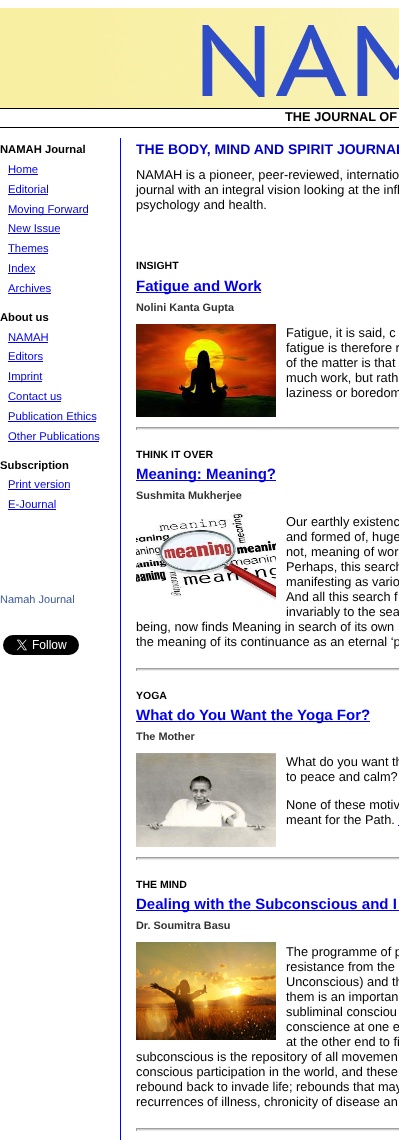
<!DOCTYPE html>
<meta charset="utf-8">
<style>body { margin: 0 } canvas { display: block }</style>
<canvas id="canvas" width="399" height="1140"></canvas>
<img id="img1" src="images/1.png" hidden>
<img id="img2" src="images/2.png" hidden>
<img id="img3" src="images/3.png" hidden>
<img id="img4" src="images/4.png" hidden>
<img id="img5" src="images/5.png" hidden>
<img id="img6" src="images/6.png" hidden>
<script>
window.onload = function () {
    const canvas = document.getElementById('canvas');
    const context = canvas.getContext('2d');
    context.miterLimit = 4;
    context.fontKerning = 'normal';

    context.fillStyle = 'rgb(255, 255, 255)';
    context.fillRect(0, 0, 399, 1140);
    context.drawImage(document.getElementById('img1'), 0, 8, 399, 100);
    context.fillStyle = 'rgb(0, 0, 0)';
    context.fillRect(0, 108, 399, 1);
    context.fillRect(0, 127, 399, 1);
    context.fillStyle = 'rgb(0, 0, 238)';
    context.fillRect(8, 174, 30, 1);
    context.fillRect(8, 194, 40, 1);
    context.fillRect(8, 214, 80, 1);
    context.fillRect(8, 233, 52, 1);
    context.fillRect(8, 253, 40, 1);
    context.fillRect(8, 273, 27, 1);
    context.fillRect(8, 293, 43, 1);
    context.fillRect(8, 342, 40, 1);
    context.fillRect(8, 361, 35, 1);
    context.fillRect(8, 381, 34, 1);
    context.fillRect(8, 401, 53, 1);
    context.fillRect(8, 421, 88, 1);
    context.fillRect(8, 441, 91, 1);
    context.fillRect(8, 489, 62, 1);
    context.fillRect(8, 509, 48, 1);
    context.drawImage(document.getElementById('img2'), 3, 635, 76, 20);
    context.fillStyle = 'rgb(0, 0, 255)';
    context.fillRect(120, 138, 1, 1002);
    context.fillStyle = 'rgb(0, 0, 238)';
    context.fillRect(136, 292, 125, 1);
    context.drawImage(document.getElementById('img3'), 136, 324, 140, 93);
    context.fillStyle = 'rgb(204, 204, 204)';
    context.fillRect(136, 428, 263, 1);
    context.fillStyle = 'rgb(159, 159, 159)';
    context.fillRect(136, 427, 263, 1);
    context.fillStyle = 'rgb(238, 238, 238)';
    context.fillRect(136, 429, 263, 1);
    context.fillStyle = 'rgb(159, 159, 159)';
    context.fillRect(136, 427, 1, 3);
    context.fillStyle = 'rgb(0, 0, 238)';
    context.fillRect(136, 480, 140, 1);
    context.drawImage(document.getElementById('img4'), 136, 512, 140, 89);
    context.fillStyle = 'rgb(204, 204, 204)';
    context.fillRect(136, 669, 263, 1);
    context.fillStyle = 'rgb(159, 159, 159)';
    context.fillRect(136, 668, 263, 1);
    context.fillStyle = 'rgb(238, 238, 238)';
    context.fillRect(136, 670, 263, 1);
    context.fillStyle = 'rgb(159, 159, 159)';
    context.fillRect(136, 668, 1, 3);
    context.fillStyle = 'rgb(0, 0, 238)';
    context.fillRect(136, 721, 234, 1);
    context.drawImage(document.getElementById('img5'), 136, 753, 140, 94);
    context.fillRect(398, 825, 1, 1);
    context.fillStyle = 'rgb(204, 204, 204)';
    context.fillRect(136, 858, 263, 1);
    context.fillStyle = 'rgb(159, 159, 159)';
    context.fillRect(136, 857, 263, 1);
    context.fillStyle = 'rgb(238, 238, 238)';
    context.fillRect(136, 859, 263, 1);
    context.fillStyle = 'rgb(159, 159, 159)';
    context.fillRect(136, 857, 1, 3);
    context.fillStyle = 'rgb(0, 0, 238)';
    context.fillRect(136, 910, 263, 1);
    context.drawImage(document.getElementById('img6'), 136, 942, 140, 98);
    context.fillStyle = 'rgb(204, 204, 204)';
    context.fillRect(136, 1129, 263, 1);
    context.fillStyle = 'rgb(159, 159, 159)';
    context.fillRect(136, 1128, 263, 1);
    context.fillStyle = 'rgb(238, 238, 238)';
    context.fillRect(136, 1130, 263, 1);
    context.fillStyle = 'rgb(159, 159, 159)';
    context.fillRect(136, 1128, 1, 3);
    context.font = 'bold 12.8px Liberation Sans';
    context.fillStyle = 'rgb(0, 0, 0)';
    context.fillText('THE JOURNAL OF', 285, 121);
    context.font = 'bold 11.25px Liberation Sans';
    context.fillText('NAMAH Journal', 0, 153);
    context.font = '11.25px Liberation Sans';
    context.fillStyle = 'rgb(0, 0, 238)';
    context.fillText('Home', 8, 173);
    context.fillText('Editorial', 8, 193);
    context.fillText('Moving Forward', 8, 213);
    context.fillText('New Issue', 8, 232);
    context.fillText('Themes', 8, 252);
    context.fillText('Index', 8, 272);
    context.fillText('Archives', 8, 292);
    context.font = 'bold 11.25px Liberation Sans';
    context.fillStyle = 'rgb(0, 0, 0)';
    context.fillText('About us', 0, 321);
    context.font = '11.25px Liberation Sans';
    context.fillStyle = 'rgb(0, 0, 238)';
    context.fillText('NAMAH', 8, 341);
    context.fillText('Editors', 8, 360);
    context.fillText('Imprint', 8, 380);
    context.fillText('Contact us', 8, 400);
    context.fillText('Publication Ethics', 8, 420);
    context.fillText('Other Publications', 8, 440);
    context.font = 'bold 11.25px Liberation Sans';
    context.fillStyle = 'rgb(0, 0, 0)';
    context.fillText('Subscription', 0, 469);
    context.font = '11.25px Liberation Sans';
    context.fillStyle = 'rgb(0, 0, 238)';
    context.fillText('Print version', 8, 488);
    context.fillText('E-Journal', 8, 508);
    context.font = '11px Liberation Sans';
    context.fillStyle = 'rgb(59, 89, 152)';
    context.fillText('Namah Journal', 0, 603);
    context.font = 'bold 14px Liberation Sans';
    context.fillStyle = 'rgb(0, 0, 204)';
    context.fillText('THE BODY, MIND AND SPIRIT JOURNAL', 136, 154);
    context.font = '12.8px Liberation Sans';
    context.fillStyle = 'rgb(0, 0, 0)';
    context.fillText('NAMAH is a pioneer, peer-reviewed, internatio', 136, 179);
    context.fillText('journal with an integral vision looking at the infl', 136, 194);
    context.fillText('psychology and health.', 136, 209);
    context.font = 'bold 10.5px Liberation Sans';
    context.fillText('INSIGHT', 136, 269);
    context.font = 'bold 15px Liberation Sans';
    context.fillStyle = 'rgb(0, 0, 238)';
    context.fillText('Fatigue and Work', 136, 291);
    context.font = 'bold 10.9px Liberation Sans';
    context.fillStyle = 'rgb(51, 51, 51)';
    context.fillText('Nolini Kanta Gupta', 136, 311);
    context.font = '12.8px Liberation Sans';
    context.fillStyle = 'rgb(0, 0, 0)';
    context.fillText('Fatigue, it is said, c', 286, 337);
    context.fillText('fatigue is therefore r', 286, 352);
    context.fillText('of the matter is that', 286, 367);
    context.fillText('much work, but rath', 286, 382);
    context.fillText('laziness or boredom', 286, 397);
    context.font = 'bold 10.5px Liberation Sans';
    context.fillText('THINK IT OVER', 136, 458);
    context.font = 'bold 15px Liberation Sans';
    context.fillStyle = 'rgb(0, 0, 238)';
    context.fillText('Meaning: Meaning?', 136, 479);
    context.font = 'bold 10.9px Liberation Sans';
    context.fillStyle = 'rgb(51, 51, 51)';
    context.fillText('Sushmita Mukherjee', 136, 499);
    context.font = '12.8px Liberation Sans';
    context.fillStyle = 'rgb(0, 0, 0)';
    context.fillText('Our earthly existenc', 286, 526);
    context.fillText('and formed of, huge', 286, 541);
    context.fillText('not, meaning of wor', 286, 556);
    context.fillText('Perhaps, this search', 286, 571);
    context.fillText('manifesting as vario', 286, 586);
    context.fillText('And all this search f', 286, 601);
    context.fillText('invariably to the sea', 286, 616);
    context.fillText('being, now finds Meaning in search of its own', 136, 631);
    context.fillText('the meaning of its continuance as an eternal ‘p', 136, 646);
    context.font = 'bold 10.5px Liberation Sans';
    context.fillText('YOGA', 136, 699);
    context.font = 'bold 15px Liberation Sans';
    context.fillStyle = 'rgb(0, 0, 238)';
    context.fillText('What do You Want the Yoga For?', 136, 720);
    context.font = 'bold 10.9px Liberation Sans';
    context.fillStyle = 'rgb(51, 51, 51)';
    context.fillText('The Mother', 136, 740);
    context.font = '12.8px Liberation Sans';
    context.fillStyle = 'rgb(0, 0, 0)';
    context.fillText('What do you want th', 286, 766);
    context.fillText('to peace and calm?', 286, 781);
    context.fillText('None of these motiv', 286, 809);
    context.fillText('meant for the Path.', 286, 824);
    context.font = 'bold 10.5px Liberation Sans';
    context.fillText('THE MIND', 136, 888);
    context.font = 'bold 15px Liberation Sans';
    context.fillStyle = 'rgb(0, 0, 238)';
    context.fillText('Dealing with the Subconscious and I', 136, 909);
    context.font = 'bold 10.9px Liberation Sans';
    context.fillStyle = 'rgb(51, 51, 51)';
    context.fillText('Dr. Soumitra Basu', 136, 929);
    context.font = '12.8px Liberation Sans';
    context.fillStyle = 'rgb(0, 0, 0)';
    context.fillText('The programme of p', 286, 956);
    context.fillText('resistance from the', 286, 971);
    context.fillText('Unconscious) and th', 286, 986);
    context.fillText('them is an importan', 286, 1001);
    context.fillText('subliminal consciou', 286, 1016);
    context.fillText('conscience at one e', 286, 1031);
    context.fillText('at the other end to fi', 286, 1046);
    context.fillText('subconscious is the repository of all movemen', 136, 1061);
    context.fillText('conscious participation in the world, and these', 136, 1076);
    context.fillText('rebound back to invade life; rebounds that may', 136, 1091);
    context.fillText('recurrences of illness, chronicity of disease an', 136, 1106);
};
</script>
